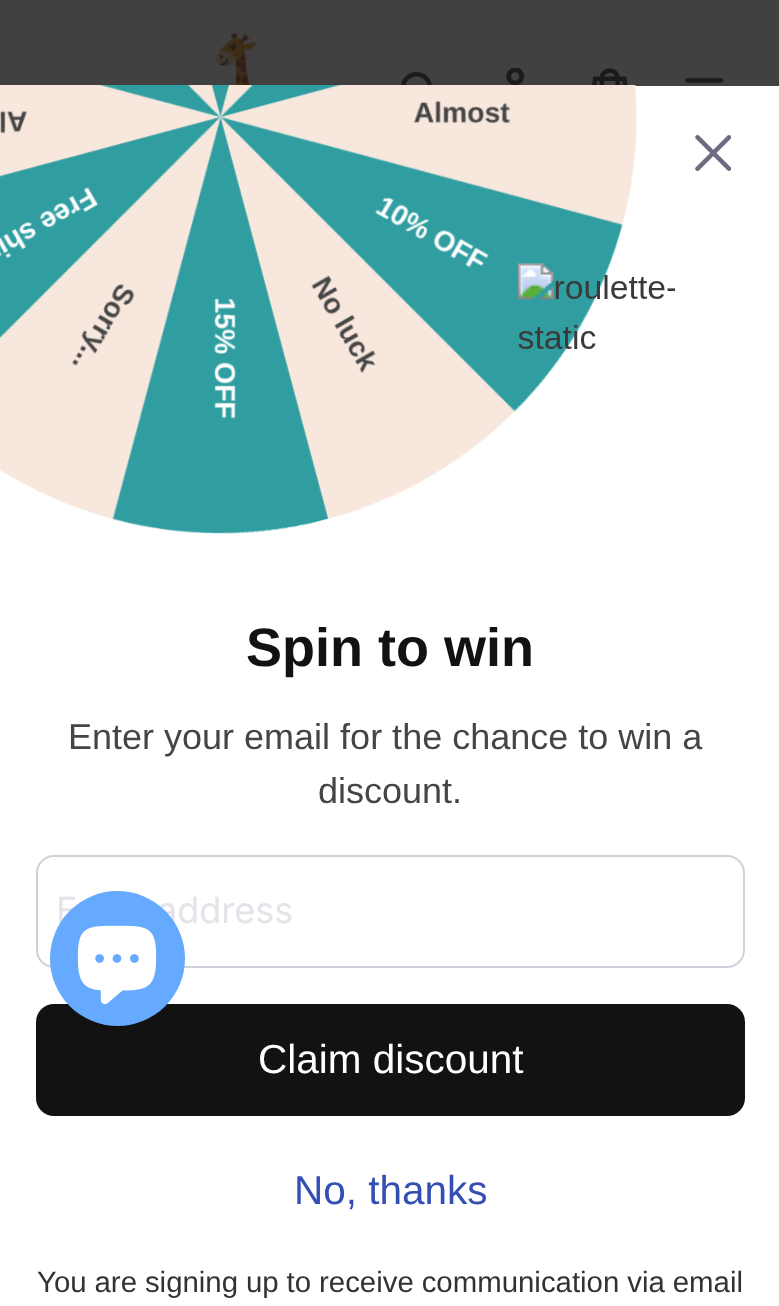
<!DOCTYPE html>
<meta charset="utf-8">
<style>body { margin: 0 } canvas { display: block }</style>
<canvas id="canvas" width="779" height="1306"></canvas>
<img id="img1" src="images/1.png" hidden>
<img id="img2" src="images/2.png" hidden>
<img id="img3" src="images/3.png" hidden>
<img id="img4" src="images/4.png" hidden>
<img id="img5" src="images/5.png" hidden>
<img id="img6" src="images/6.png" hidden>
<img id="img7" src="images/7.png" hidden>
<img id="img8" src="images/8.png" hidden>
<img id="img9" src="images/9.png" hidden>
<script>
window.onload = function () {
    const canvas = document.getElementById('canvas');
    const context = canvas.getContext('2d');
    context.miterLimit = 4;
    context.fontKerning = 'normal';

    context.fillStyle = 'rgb(65, 65, 65)';
    context.fillRect(0, 0, 779, 1306);
    context.drawImage(document.getElementById('img1'), 215, 33, 42, 52);
    context.drawImage(document.getElementById('img2'), 401, 72, 31, 13);
    context.drawImage(document.getElementById('img3'), 506, 68, 19, 17);
    context.drawImage(document.getElementById('img4'), 592, 68, 36, 17);
    context.drawImage(document.getElementById('img5'), 685, 78, 39, 5);
    context.fillStyle = 'rgb(255, 255, 255)';
    context.fillRect(0, 86, 779, 1220);
    context.drawImage(document.getElementById('img6'), 0, 85, 637, 449);
    context.drawImage(document.getElementById('img7'), 518, 263, 157, 86);
    context.drawImage(document.getElementById('img8'), 695, 135, 36, 36);
    context.beginPath();
    context.roundRect(37, 856, 707, 111, 17);
    context.strokeStyle = 'rgb(209, 209, 219)';
    context.lineWidth = 2;
    context.stroke();
    context.fillStyle = 'rgb(18, 18, 18)';
    context.beginPath();
    context.roundRect(36, 1004, 709, 112, 18);
    context.fill();
    context.font = 'bold 54px Liberation Sans';
    context.fillText('Spin to win', 246, 666);
    context.font = '36px Liberation Sans';
    context.fillStyle = 'rgb(69, 69, 69)';
    context.fillText('Enter your email for the chance to win a', 68, 749);
    context.fillText('discount.', 318, 803);
    context.font = '36px Inter';
    context.fillStyle = 'rgb(227, 227, 233)';
    context.fillText('E', 56, 923);
    context.fillText('address', 157, 923);
    context.font = '40.5px Liberation Sans';
    context.fillStyle = 'rgb(255, 255, 255)';
    context.fillText('Claim discount', 258, 1073);
    context.fillStyle = 'rgb(51, 79, 180)';
    context.fillText('No, thanks', 294, 1204);
    context.wordSpacing = '-0.25px';
    context.font = '29.4px Liberation Sans';
    context.fillStyle = 'rgb(51, 50, 50)';
    context.fillText('You are signing up to receive communication via email', 37, 1292);
    context.fillStyle = 'rgb(102, 170, 255)';
    context.beginPath();
    context.arc(117.5, 958.5, 67.5, 0, 2 * Math.PI);
    context.fill();
    context.drawImage(document.getElementById('img9'), 77, 925, 80, 80);
};
</script>
